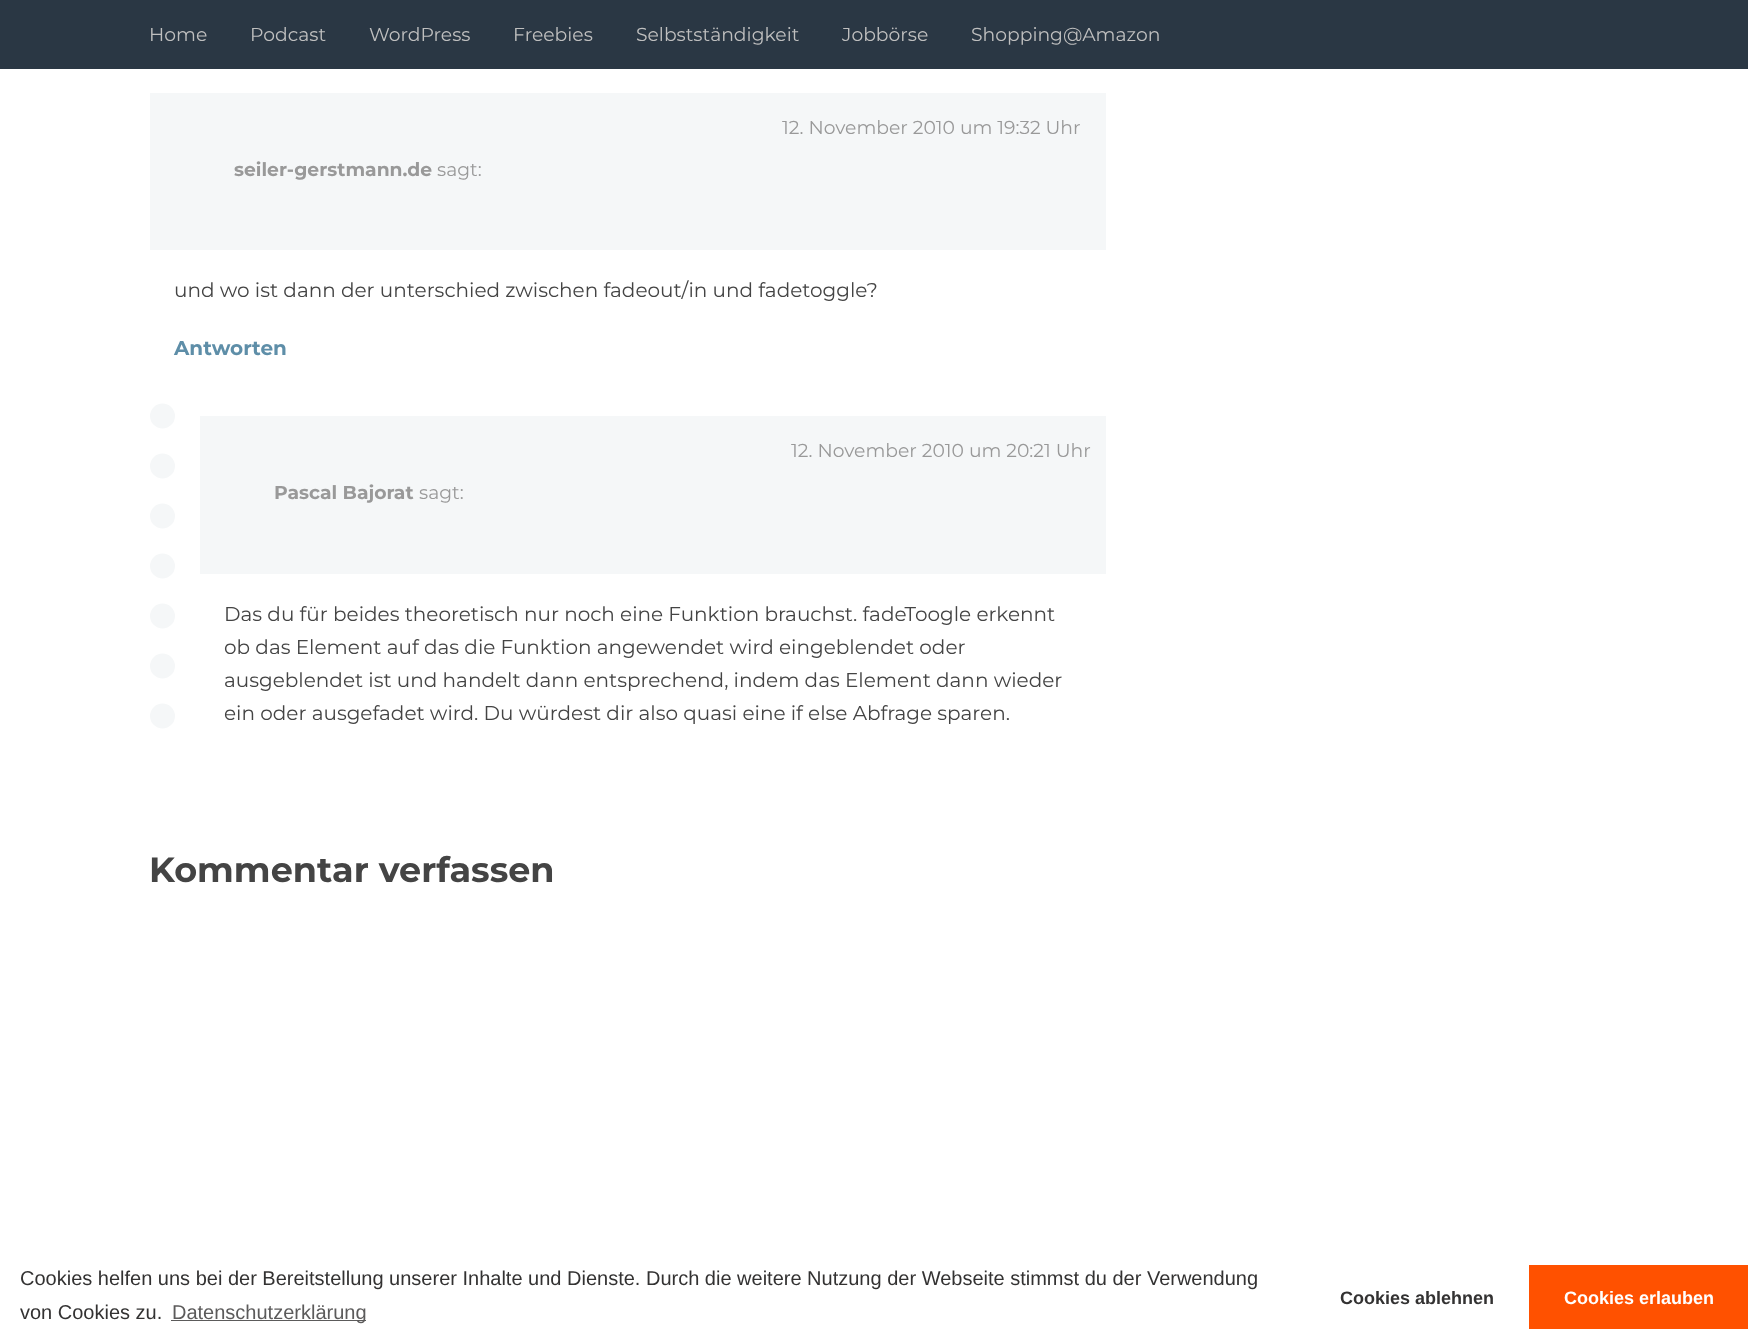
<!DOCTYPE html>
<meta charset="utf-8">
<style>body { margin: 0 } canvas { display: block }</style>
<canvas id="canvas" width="1748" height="1331"></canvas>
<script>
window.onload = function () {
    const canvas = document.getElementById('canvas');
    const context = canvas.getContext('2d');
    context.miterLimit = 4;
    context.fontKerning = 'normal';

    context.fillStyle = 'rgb(255, 255, 255)';
    context.fillRect(0, 0, 1748, 1331);
    context.fillStyle = 'rgb(42, 55, 68)';
    context.fillRect(0, 0, 1748, 69);
    context.fillStyle = 'rgb(245, 247, 248)';
    context.fillRect(150, 93, 956, 157);
    context.beginPath();
    context.moveTo(162.5, 416);
    context.lineTo(162.5, 730);
    context.strokeStyle = 'rgb(245, 247, 248)';
    context.lineWidth = 25;
    context.lineCap = 'round';
    context.setLineDash([0, 50]);
    context.stroke();
    context.fillRect(200, 416, 906, 158);
    context.fillStyle = 'rgb(92, 91, 91)';
    context.fillRect(171, 1320, 195, 1);
    context.fillStyle = 'rgb(255, 81, 0)';
    context.fillRect(1529, 1265, 219, 64);
    context.font = '100 18.75px "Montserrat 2"';
    context.fillStyle = 'rgb(191, 191, 191)';
    context.fillText('Home', 149, 41);
    context.fillText('Podcast', 250, 41);
    context.fillText('WordPress', 369, 41);
    context.fillText('Freebies', 513, 41);
    context.fillText('Selbstständigkeit', 636, 41);
    context.fillText('Jobbörse', 842, 41);
    context.fillText('Shopping@Amazon', 971, 41);
    context.fillStyle = 'rgb(153, 153, 153)';
    context.fillText('12. November 2010 um 19:32 Uhr', 782, 134);
    context.font = '100 18.75px Montserrat';
    context.fillText('seiler-gerstmann.de', 234, 176);
    context.font = '100 18.75px "Montserrat 2"';
    context.fillText('sagt:', 437, 176);
    context.font = '100 20px "Montserrat 2"';
    context.fillStyle = 'rgb(68, 68, 68)';
    context.fillText('und wo ist dann der unterschied zwischen fadeout/in und fadetoggle?', 174, 297);
    context.font = '100 20px Montserrat';
    context.fillStyle = 'rgb(94, 142, 168)';
    context.fillText('Antworten', 174, 355);
    context.font = '100 18.75px "Montserrat 2"';
    context.fillStyle = 'rgb(153, 153, 153)';
    context.fillText('12. November 2010 um 20:21 Uhr', 791, 457);
    context.font = '100 18.75px Montserrat';
    context.fillText('Pascal Bajorat', 274, 499);
    context.font = '100 18.75px "Montserrat 2"';
    context.fillText('sagt:', 419, 499);
    context.font = '100 20px "Montserrat 2"';
    context.fillStyle = 'rgb(68, 68, 68)';
    context.fillText('Das du für beides theoretisch nur noch eine Funktion brauchst. fadeToogle erkennt', 224, 621);
    context.fillText('ob das Element auf das die Funktion angewendet wird eingeblendet oder', 224, 654);
    context.fillText('ausgeblendet ist und handelt dann entsprechend, indem das Element dann wieder', 224, 687);
    context.fillText('ein oder ausgefadet wird. Du würdest dir also quasi eine if else Abfrage sparen.', 224, 720);
    context.font = '100 35px Montserrat';
    context.fillText('Kommentar verfassen', 149, 882);
    context.font = '20px Liberation Sans';
    context.fillStyle = 'rgb(51, 50, 50)';
    context.fillText('Cookies helfen uns bei der Bereitstellung unserer Inhalte und Dienste. Durch die weitere Nutzung der Webseite stimmst du der Verwendung', 20, 1285);
    context.fillText('von Cookies zu.', 20, 1319);
    context.fillStyle = 'rgb(92, 91, 91)';
    context.fillText('Datenschutzerklärung', 172, 1319);
    context.font = 'bold 18px Liberation Sans';
    context.fillStyle = 'rgb(51, 50, 50)';
    context.fillText('Cookies ablehnen', 1340, 1304);
    context.fillStyle = 'rgb(255, 255, 255)';
    context.fillText('Cookies erlauben', 1564, 1304);
};
</script>
